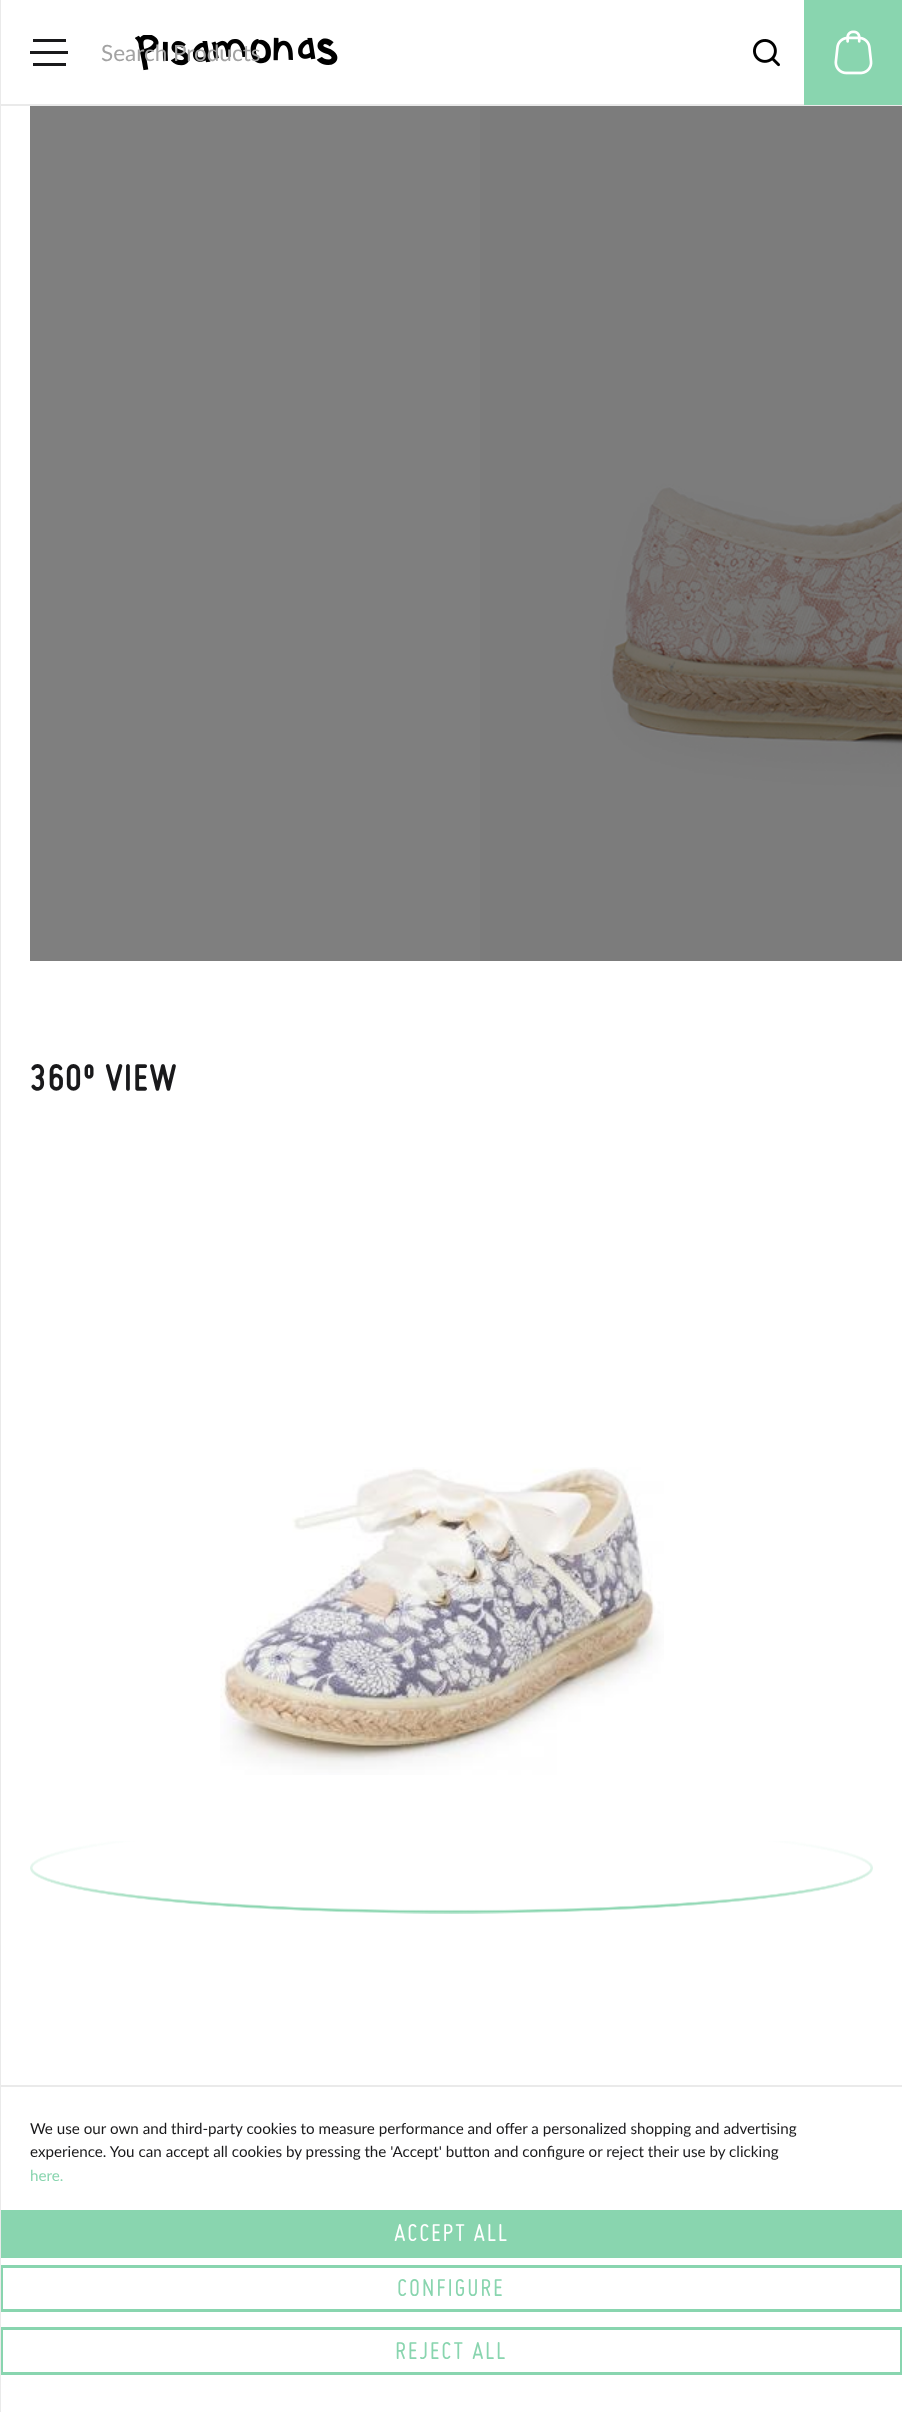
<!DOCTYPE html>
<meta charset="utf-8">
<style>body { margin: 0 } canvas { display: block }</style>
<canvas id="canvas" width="902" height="2412"></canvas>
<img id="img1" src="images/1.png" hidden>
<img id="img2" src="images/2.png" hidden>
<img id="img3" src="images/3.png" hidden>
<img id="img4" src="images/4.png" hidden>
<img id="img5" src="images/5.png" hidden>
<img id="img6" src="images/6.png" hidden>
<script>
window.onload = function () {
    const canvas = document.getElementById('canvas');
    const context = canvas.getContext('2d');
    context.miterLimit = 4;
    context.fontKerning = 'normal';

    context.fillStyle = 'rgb(255, 255, 255)';
    context.fillRect(0, 0, 902, 2412);
    context.fillStyle = 'rgb(234, 234, 234)';
    context.fillRect(0, 104, 902, 2);
    context.fillRect(0, 2085, 902, 2);
    context.strokeStyle = 'rgb(137, 213, 175)';
    context.lineWidth = 3;
    context.strokeRect(1.5, 2266.5, 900, 44);
    context.strokeRect(1.5, 2328.5, 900, 45);
    context.fillRect(0, 0, 1, 2412);
    context.fillStyle = 'rgb(25, 25, 27)';
    context.fillRect(33, 39, 33, 3);
    context.fillRect(33, 63, 33, 3);
    context.fillRect(30, 51, 38, 3);
    context.drawImage(document.getElementById('img1'), 135, 35, 203, 36);
    context.drawImage(document.getElementById('img2'), 753, 39, 27, 28);
    context.fillStyle = 'rgb(137, 213, 175)';
    context.fillRect(804, 0, 98, 105);
    context.drawImage(document.getElementById('img3'), 834, 30, 39, 45);
    context.drawImage(document.getElementById('img4'), 30, 106, 872, 855);
    context.drawImage(document.getElementById('img5'), 220, 1467, 444, 308);
    context.drawImage(document.getElementById('img6'), 30, 1841, 843, 73);
    context.fillRect(1, 2210, 901, 48);
    context.font = '22.5px Lato';
    context.fillStyle = 'rgb(163, 163, 163)';
    context.fillText('Search Products', 101, 61);
    context.letterSpacing = '1.25px';
    context.font = 'italic bold 39.5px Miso';
    context.fillStyle = 'rgb(25, 25, 27)';
    context.fillText('360º VIEW', 30, 1090);
    context.letterSpacing = '0px';
    context.font = '15.2px Lato';
    context.fillText('We use our own and third-party cookies to measure performance and offer a personalized shopping and advertising', 30, 2134);
    context.fillText('experience. You can accept all cookies by pressing the \'Accept\' button and configure or reject their use by clicking', 30, 2157);
    context.fillStyle = 'rgb(137, 213, 175)';
    context.fillText('here.', 30, 2181);
    context.letterSpacing = '1.75px';
    context.font = 'italic 26.5px Miso';
    context.fillStyle = 'rgb(255, 255, 255)';
    context.fillText('ACCEPT ALL', 394, 2241);
    context.fillStyle = 'rgb(137, 213, 175)';
    context.fillText('CONFIGURE', 397, 2296);
    context.fillText('REJECT ALL', 395, 2359);
};
</script>
